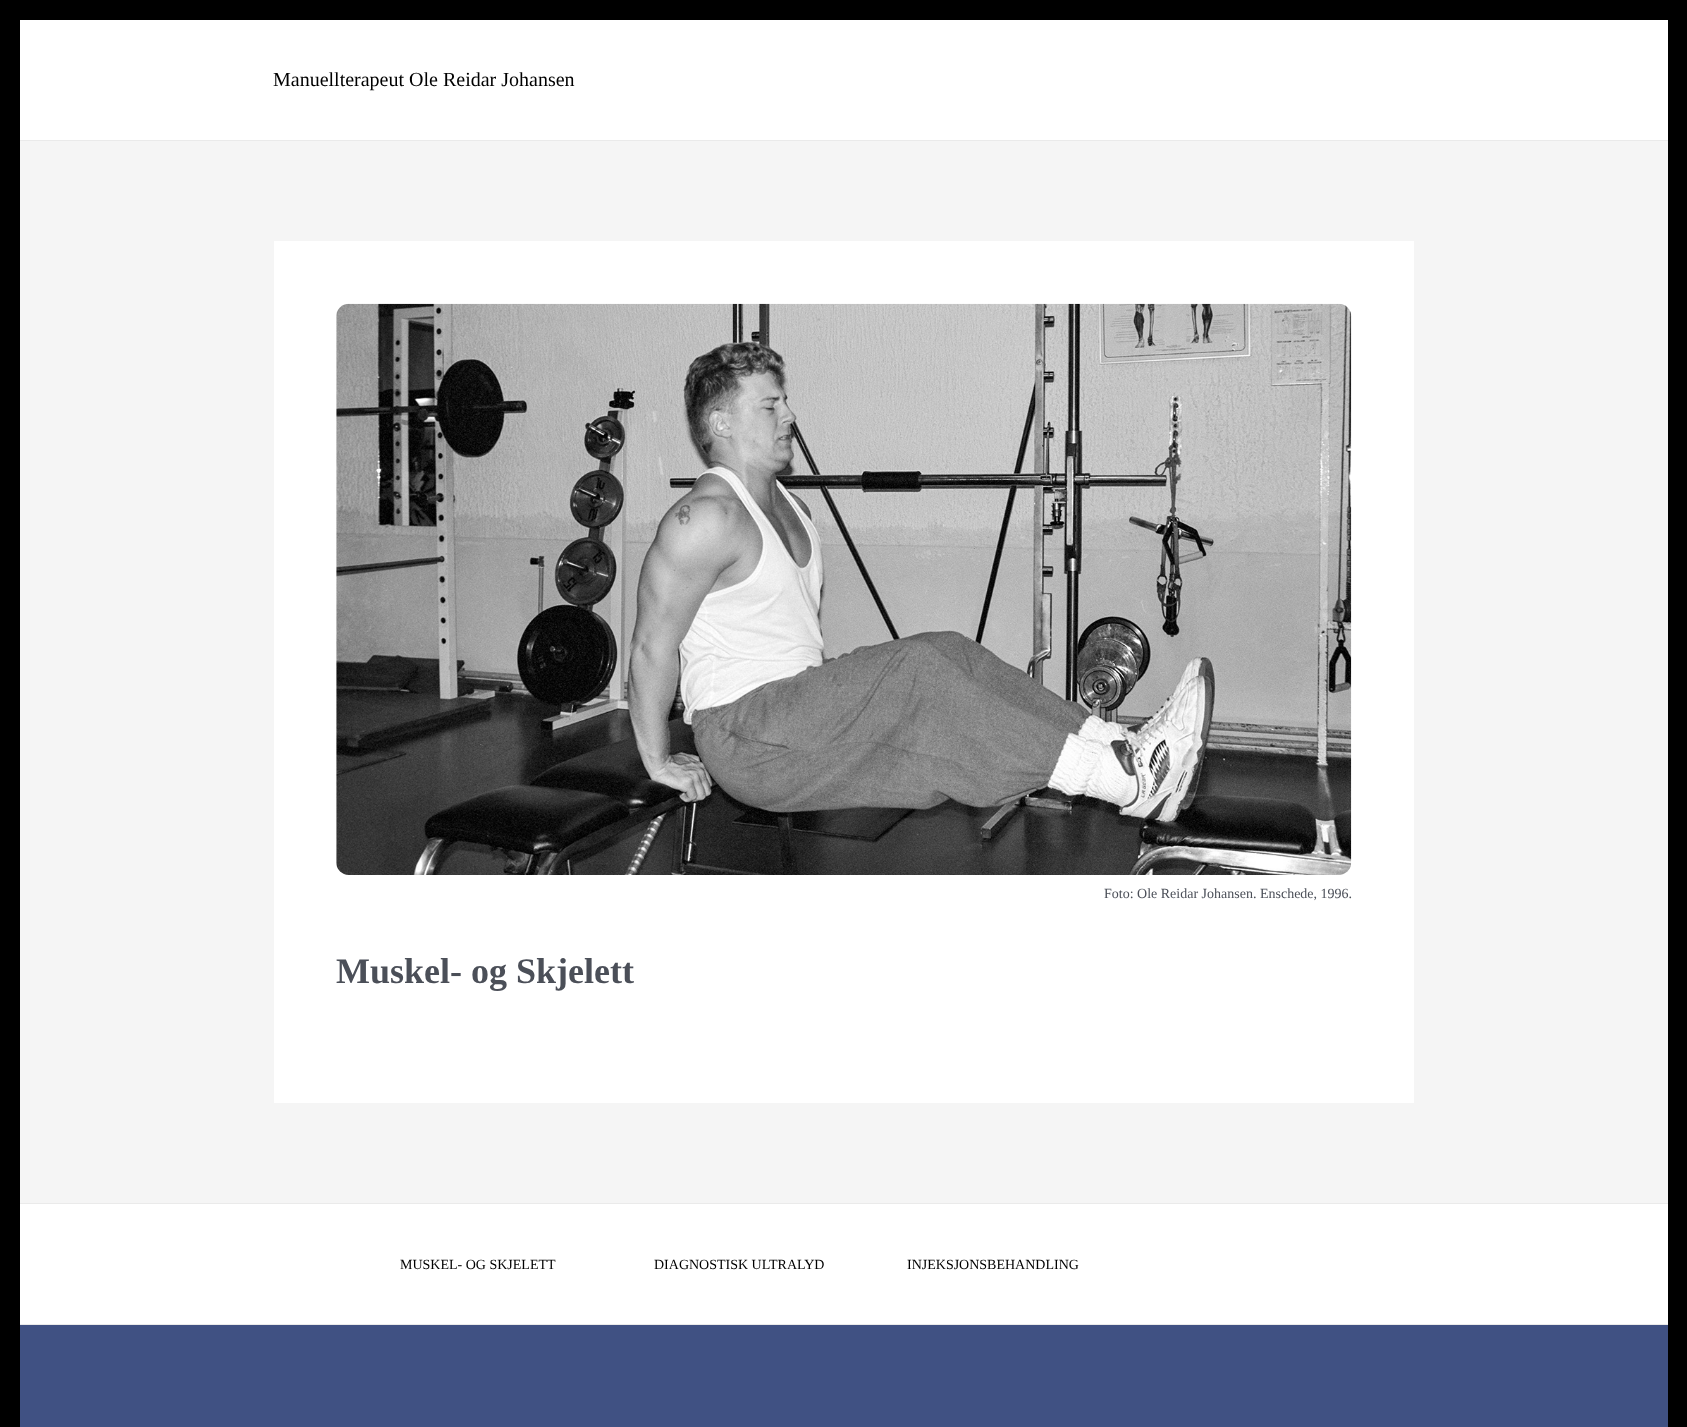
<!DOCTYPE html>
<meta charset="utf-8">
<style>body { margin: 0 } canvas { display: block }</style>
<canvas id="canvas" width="1687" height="1427"></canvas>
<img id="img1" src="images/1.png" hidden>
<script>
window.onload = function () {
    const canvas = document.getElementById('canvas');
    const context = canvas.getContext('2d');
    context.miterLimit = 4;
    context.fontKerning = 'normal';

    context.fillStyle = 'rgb(0, 0, 0)';
    context.fillRect(0, 0, 1687, 1427);
    context.fillStyle = 'rgb(245, 245, 245)';
    context.fillRect(20, 141, 1648, 1062);
    context.fillStyle = 'rgb(255, 255, 255)';
    context.fillRect(20, 20, 1648, 120);
    context.fillStyle = 'rgb(234, 234, 234)';
    context.fillRect(20, 140, 1648, 1);
    context.fillStyle = 'rgb(255, 255, 255)';
    context.fillRect(274, 241, 1140, 862);
    context.drawImage(document.getElementById('img1'), 336, 303, 1016, 572);
    context.fillRect(20, 1204, 1648, 120);
    context.fillStyle = 'rgb(234, 234, 234)';
    context.fillRect(20, 1203, 1648, 1);
    context.fillStyle = 'rgb(64, 81, 131)';
    context.fillRect(20, 1325, 1648, 102);
    context.fillStyle = 'rgb(234, 234, 234)';
    context.fillRect(20, 1324, 1648, 1);
    context.font = '20px Liberation Serif';
    context.fillStyle = 'rgb(0, 0, 0)';
    context.fillText('Manuellterapeut Ole Reidar Johansen', 273, 86);
    context.font = '14px Liberation Serif';
    context.fillStyle = 'rgb(75, 79, 88)';
    context.fillText('Foto: Ole Reidar Johansen. Enschede, 1996.', 1104, 898);
    context.font = 'bold 36px Liberation Serif';
    context.fillText('Muskel- og Skjelett', 336, 983);
    context.font = '14px Liberation Serif';
    context.fillStyle = 'rgb(0, 0, 0)';
    context.fillText('MUSKEL- OG SKJELETT', 400, 1269);
    context.fillText('DIAGNOSTISK ULTRALYD', 654, 1269);
    context.fillText('INJEKSJONSBEHANDLING', 907, 1269);
};
</script>
